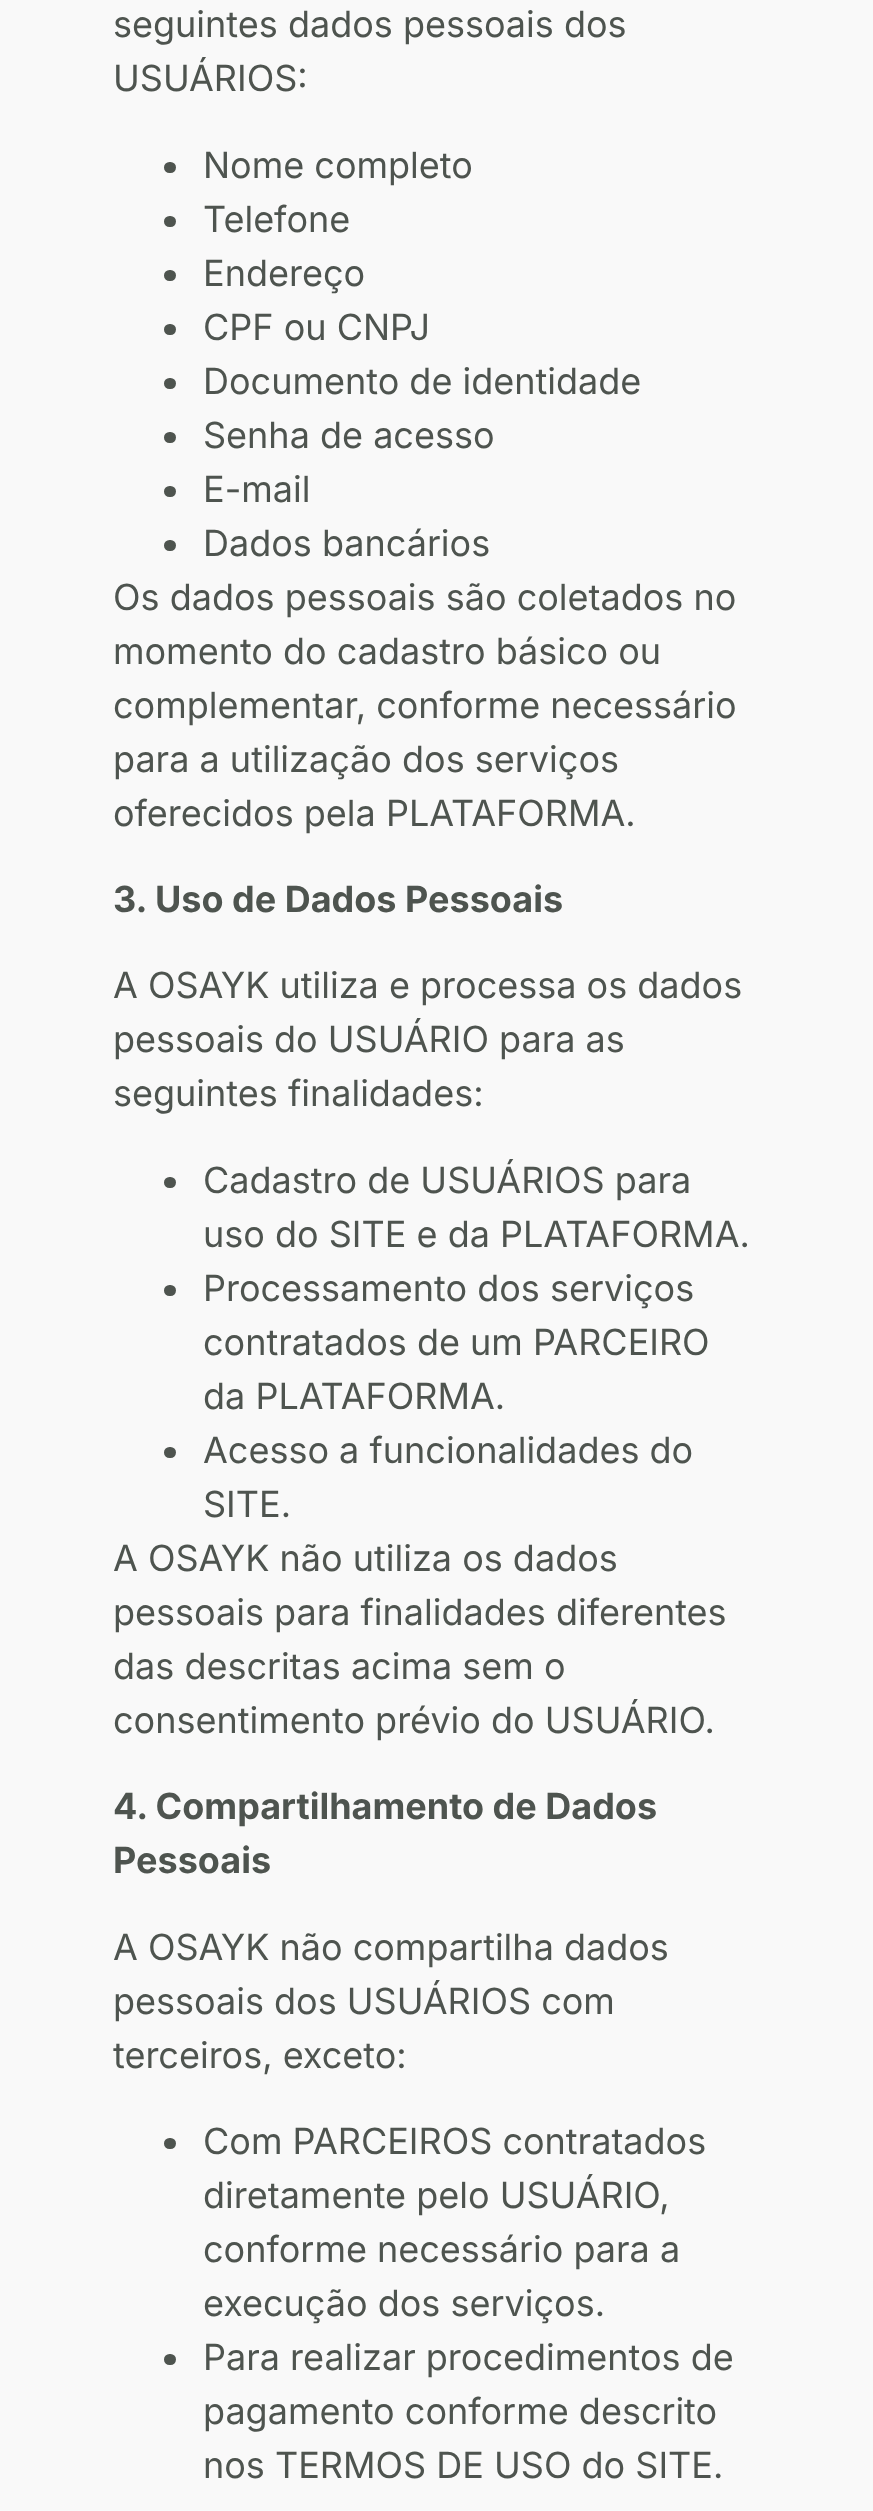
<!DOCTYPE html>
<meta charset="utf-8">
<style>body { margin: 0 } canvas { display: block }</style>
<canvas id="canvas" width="873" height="2511"></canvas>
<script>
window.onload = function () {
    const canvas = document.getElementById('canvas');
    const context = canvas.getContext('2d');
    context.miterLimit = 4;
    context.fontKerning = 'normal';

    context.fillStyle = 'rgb(249, 249, 249)';
    context.fillRect(0, 0, 873, 2511);
    context.fillStyle = 'rgb(78, 84, 79)';
    context.beginPath();
    context.roundRect(164, 162, 12, 11, 5.5);
    context.fill();
    context.beginPath();
    context.roundRect(164, 216, 12, 11, 5.5);
    context.fill();
    context.beginPath();
    context.roundRect(164, 270, 12, 11, 5.5);
    context.fill();
    context.beginPath();
    context.roundRect(164, 324, 12, 11, 5.5);
    context.fill();
    context.beginPath();
    context.roundRect(164, 378, 12, 11, 5.5);
    context.fill();
    context.beginPath();
    context.roundRect(164, 432, 12, 11, 5.5);
    context.fill();
    context.beginPath();
    context.roundRect(164, 486, 12, 11, 5.5);
    context.fill();
    context.beginPath();
    context.roundRect(164, 540, 12, 11, 5.5);
    context.fill();
    context.beginPath();
    context.roundRect(164, 1177, 12, 11, 5.5);
    context.fill();
    context.beginPath();
    context.roundRect(164, 1285, 12, 11, 5.5);
    context.fill();
    context.beginPath();
    context.roundRect(164, 1447, 12, 11, 5.5);
    context.fill();
    context.beginPath();
    context.roundRect(164, 2138, 12, 11, 5.5);
    context.fill();
    context.beginPath();
    context.roundRect(164, 2354, 12, 11, 5.5);
    context.fill();
    context.font = '36px Inter';
    context.fillText('seguintes dados pessoais dos', 113, 37);
    context.fillText('USUÁRIOS:', 113, 91);
    context.fillText('Nome completo', 203, 178);
    context.fillText('Telefone', 203, 232);
    context.fillText('Endereço', 203, 286);
    context.fillText('CPF ou CNPJ', 203, 340);
    context.fillText('Documento de identidade', 203, 394);
    context.fillText('Senha de acesso', 203, 448);
    context.fillText('E-mail', 203, 502);
    context.fillText('Dados bancários', 203, 556);
    context.fillText('Os dados pessoais são coletados no', 113, 610);
    context.fillText('momento do cadastro básico ou', 113, 664);
    context.fillText('complementar, conforme necessário', 113, 718);
    context.fillText('para a utilização dos serviços', 113, 772);
    context.fillText('oferecidos pela PLATAFORMA.', 113, 826);
    context.font = 'bold 36px Inter';
    context.fillText('3. Uso de Dados Pessoais', 113, 912);
    context.font = '36px Inter';
    context.fillText('A OSAYK utiliza e processa os dados', 113, 998);
    context.fillText('pessoais do USUÁRIO para as', 113, 1052);
    context.fillText('seguintes finalidades:', 113, 1106);
    context.fillText('Cadastro de USUÁRIOS para', 203, 1193);
    context.fillText('uso do SITE e da PLATAFORMA.', 203, 1247);
    context.fillText('Processamento dos serviços', 203, 1301);
    context.fillText('contratados de um PARCEIRO', 203, 1355);
    context.fillText('da PLATAFORMA.', 203, 1409);
    context.fillText('Acesso a funcionalidades do', 203, 1463);
    context.fillText('SITE.', 203, 1517);
    context.fillText('A OSAYK não utiliza os dados', 113, 1571);
    context.fillText('pessoais para finalidades diferentes', 113, 1625);
    context.fillText('das descritas acima sem o', 113, 1679);
    context.fillText('consentimento prévio do USUÁRIO.', 113, 1733);
    context.font = 'bold 36px Inter';
    context.fillText('4. Compartilhamento de Dados', 113, 1819);
    context.fillText('Pessoais', 113, 1873);
    context.font = '36px Inter';
    context.fillText('A OSAYK não compartilha dados', 113, 1960);
    context.fillText('pessoais dos USUÁRIOS com', 113, 2014);
    context.fillText('terceiros, exceto:', 113, 2068);
    context.fillText('Com PARCEIROS contratados', 203, 2154);
    context.fillText('diretamente pelo USUÁRIO,', 203, 2208);
    context.fillText('conforme necessário para a', 203, 2262);
    context.fillText('execução dos serviços.', 203, 2316);
    context.fillText('Para realizar procedimentos de', 203, 2370);
    context.fillText('pagamento conforme descrito', 203, 2424);
    context.fillText('nos TERMOS DE USO do SITE.', 203, 2478);
};
</script>
